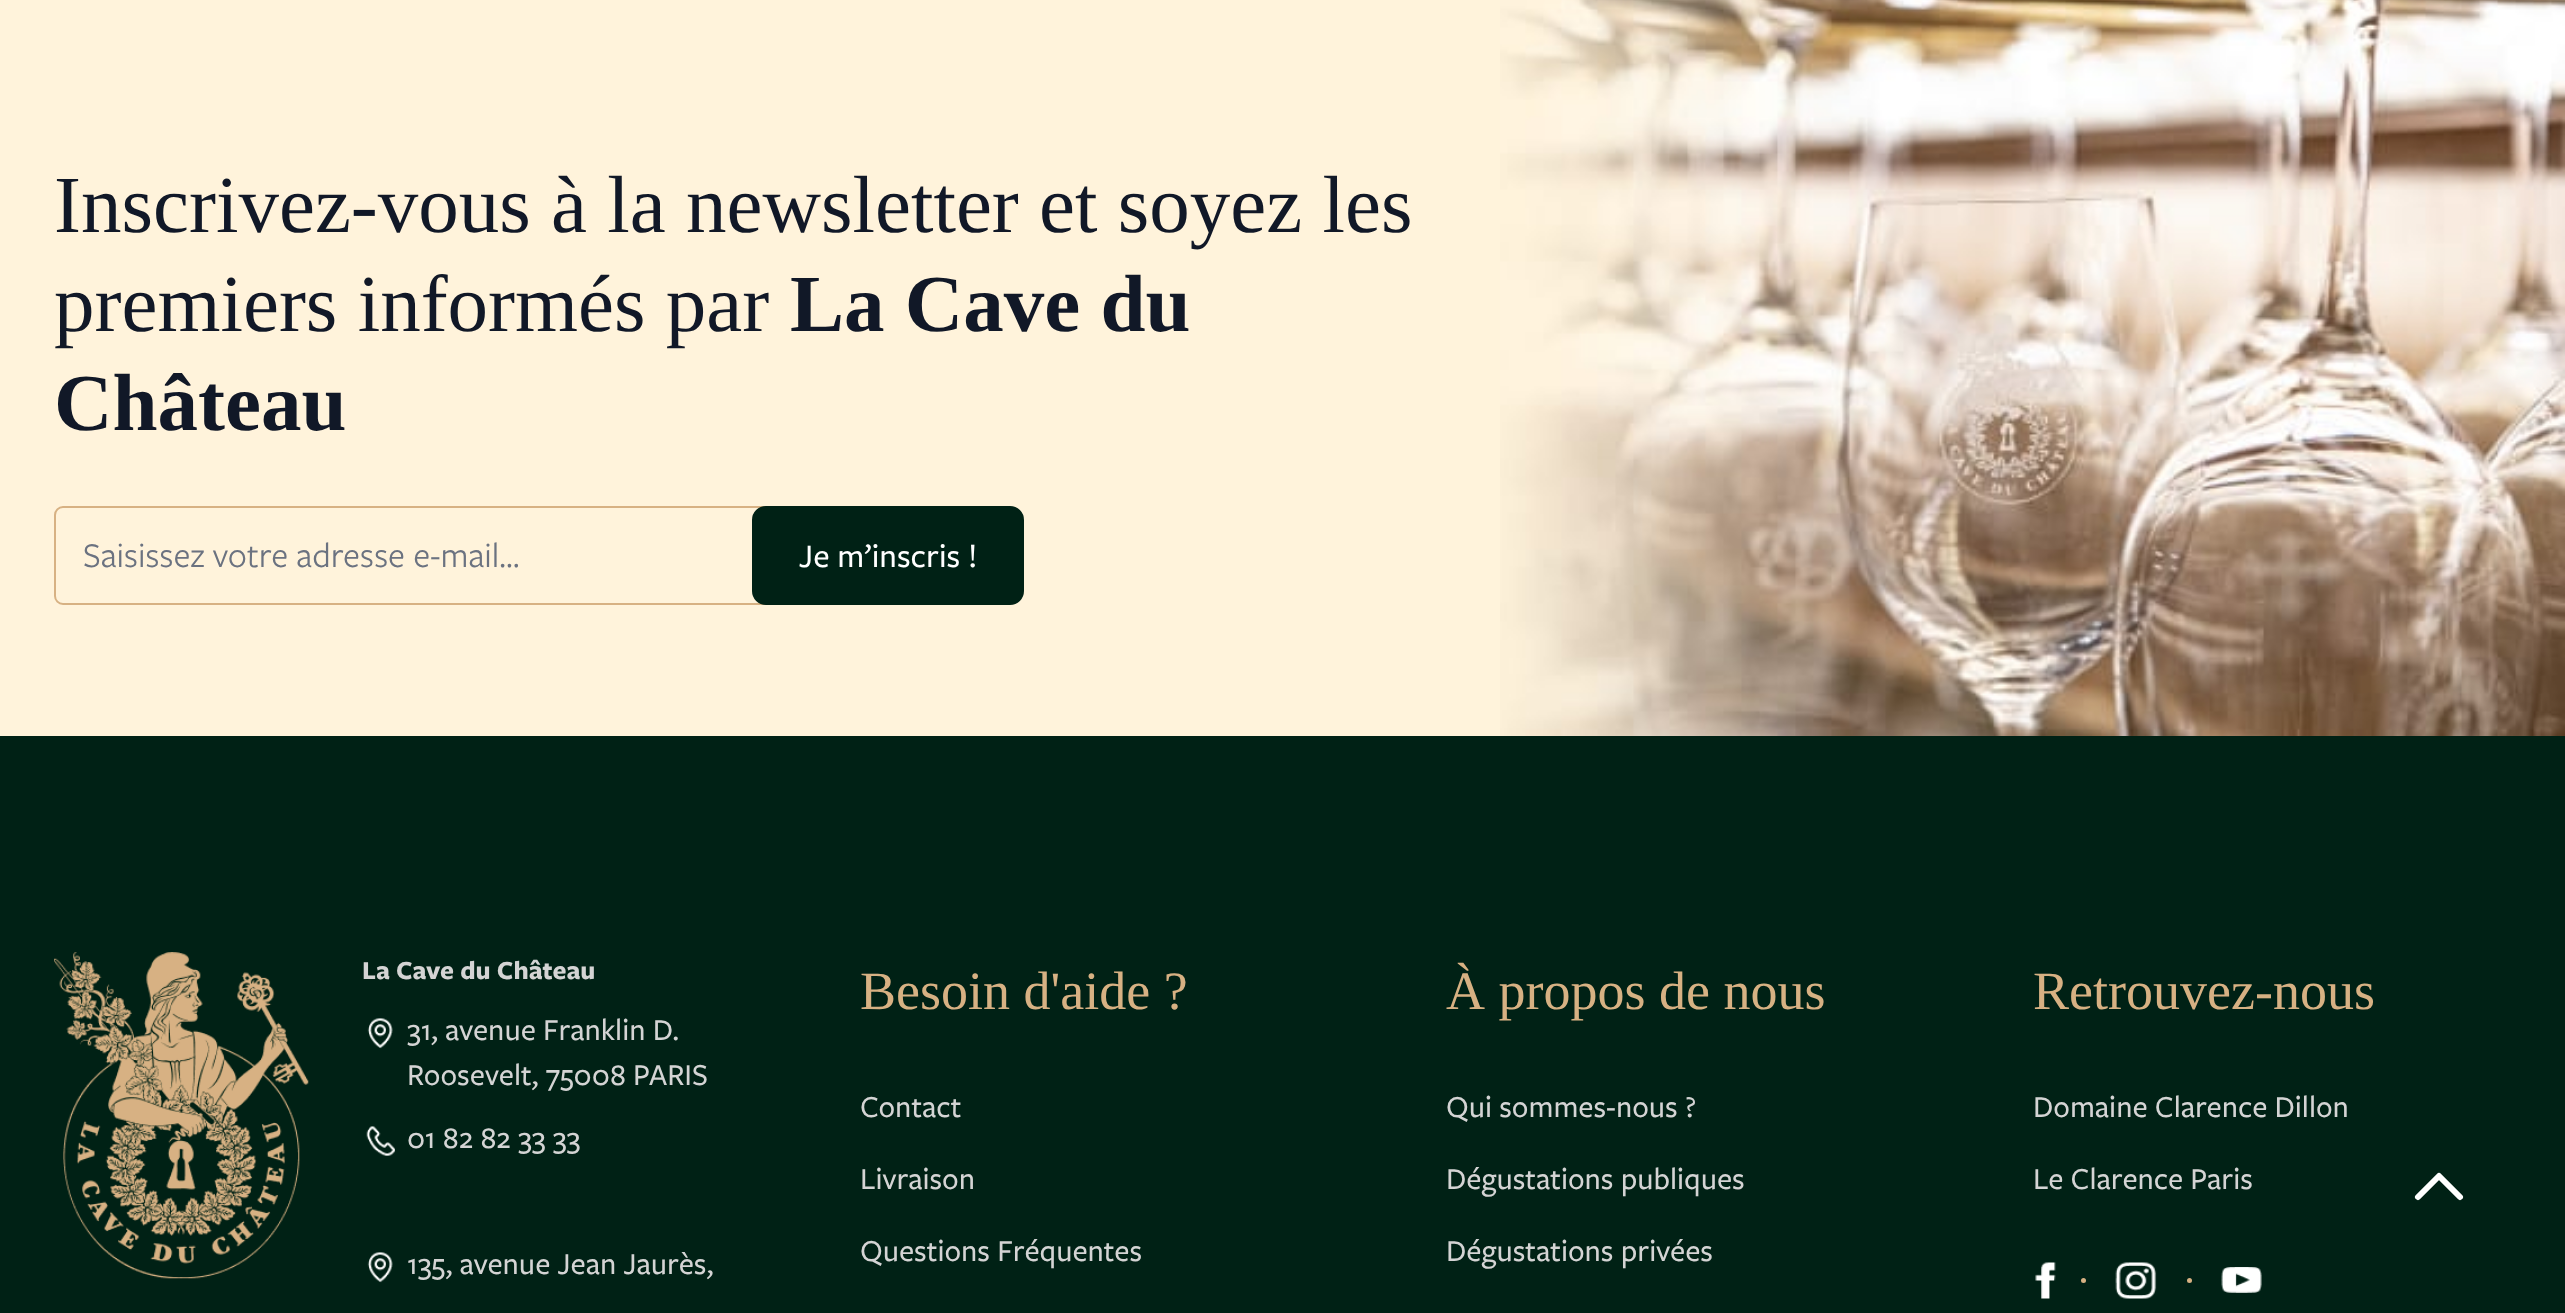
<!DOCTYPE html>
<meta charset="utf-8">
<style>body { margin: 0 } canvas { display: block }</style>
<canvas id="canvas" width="2565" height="1313"></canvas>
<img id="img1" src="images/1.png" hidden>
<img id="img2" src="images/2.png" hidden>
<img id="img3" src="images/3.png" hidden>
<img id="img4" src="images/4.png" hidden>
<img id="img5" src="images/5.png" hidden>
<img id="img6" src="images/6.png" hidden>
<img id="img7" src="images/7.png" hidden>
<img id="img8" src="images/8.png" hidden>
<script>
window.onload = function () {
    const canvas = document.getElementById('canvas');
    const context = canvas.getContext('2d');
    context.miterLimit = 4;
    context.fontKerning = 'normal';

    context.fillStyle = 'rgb(255, 243, 219)';
    context.fillRect(0, 0, 2565, 1313);
    context.beginPath();
    context.roundRect(55, 507, 718, 97, 8);
    context.strokeStyle = 'rgb(215, 177, 131)';
    context.lineWidth = 2;
    context.stroke();
    context.fillStyle = 'rgb(0, 33, 21)';
    context.beginPath();
    context.roundRect(753, 507, 270, 97, 13);
    context.fill();
    context.strokeStyle = 'rgb(0, 33, 21)';
    context.stroke();
    context.drawImage(document.getElementById('img1'), 1500, 0, 1065, 736);
    context.fillRect(0, 736, 2565, 577);
    context.drawImage(document.getElementById('img2'), 54, 952, 255, 327);
    context.drawImage(document.getElementById('img3'), 367, 1018, 26, 31);
    context.drawImage(document.getElementById('img4'), 366, 1126, 29, 30);
    context.drawImage(document.getElementById('img5'), 367, 1252, 26, 31);
    context.drawImage(document.getElementById('img6'), 2035, 1262, 21, 37);
    context.fillStyle = 'rgb(215, 177, 131)';
    context.beginPath();
    context.arc(2083.5, 1280.5, 2.5, 0, 2 * Math.PI);
    context.fill();
    context.drawImage(document.getElementById('img7'), 2115, 1262, 42, 37);
    context.beginPath();
    context.arc(2189.5, 1280.5, 2.5, 0, 2 * Math.PI);
    context.fill();
    context.drawImage(document.getElementById('img8'), 2221, 1267, 41, 26);
    context.beginPath();
    context.moveTo(2418, 1197);
    context.lineTo(2439, 1176);
    context.lineTo(2460, 1197);
    context.strokeStyle = 'rgb(255, 255, 255)';
    context.lineWidth = 6;
    context.lineCap = 'round';
    context.lineJoin = 'round';
    context.stroke();
    context.font = '81px Liberation Serif';
    context.fillStyle = 'rgb(17, 24, 39)';
    context.fillText('Inscrivez-vous à la newsletter et soyez les', 54, 232);
    context.fillText('premiers informés par', 54, 331);
    context.font = 'bold 81px Liberation Serif';
    context.fillText('La Cave du', 790, 331);
    context.fillText('Château', 54, 430);
    context.font = '36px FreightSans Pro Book';
    context.fillStyle = 'rgb(107, 114, 128)';
    context.fillText('Saisissez votre adresse e-mail…', 83, 567);
    context.font = '500 34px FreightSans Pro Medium';
    context.fillStyle = 'rgb(255, 255, 255)';
    context.fillText('Je m’inscris !', 799, 567);
    context.font = 'bold 27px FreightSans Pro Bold';
    context.fillStyle = 'rgb(212, 212, 212)';
    context.fillText('La Cave du Château', 362, 979);
    context.font = '500 31.5px FreightSans Pro Medium';
    context.fillText('31, avenue Franklin D.', 407, 1040);
    context.fillText('Roosevelt, 75008 PARIS', 407, 1085);
    context.fillText('01 82 82 33 33', 407, 1148);
    context.fillText('135, avenue Jean Jaurès,', 407, 1274);
    context.font = '54px Liberation Serif';
    context.fillStyle = 'rgb(215, 177, 131)';
    context.fillText('Besoin d\'aide ?', 860, 1009);
    context.font = '500 31.5px FreightSans Pro Medium';
    context.fillStyle = 'rgb(212, 212, 212)';
    context.fillText('Contact', 860, 1117);
    context.fillText('Livraison', 860, 1189);
    context.fillText('Questions Fréquentes', 860, 1261);
    context.font = '54px Liberation Serif';
    context.fillStyle = 'rgb(215, 177, 131)';
    context.fillText('À propos de nous', 1446, 1009);
    context.font = '500 31.5px FreightSans Pro Medium';
    context.fillStyle = 'rgb(212, 212, 212)';
    context.fillText('Qui sommes-nous ?', 1446, 1117);
    context.fillText('Dégustations publiques', 1446, 1189);
    context.fillText('Dégustations privées', 1446, 1261);
    context.font = '54px Liberation Serif';
    context.fillStyle = 'rgb(215, 177, 131)';
    context.fillText('Retrouvez-nous', 2033, 1009);
    context.font = '500 31.5px FreightSans Pro Medium';
    context.fillStyle = 'rgb(212, 212, 212)';
    context.fillText('Domaine Clarence Dillon', 2033, 1117);
    context.fillText('Le Clarence Paris', 2033, 1189);
};
</script>
